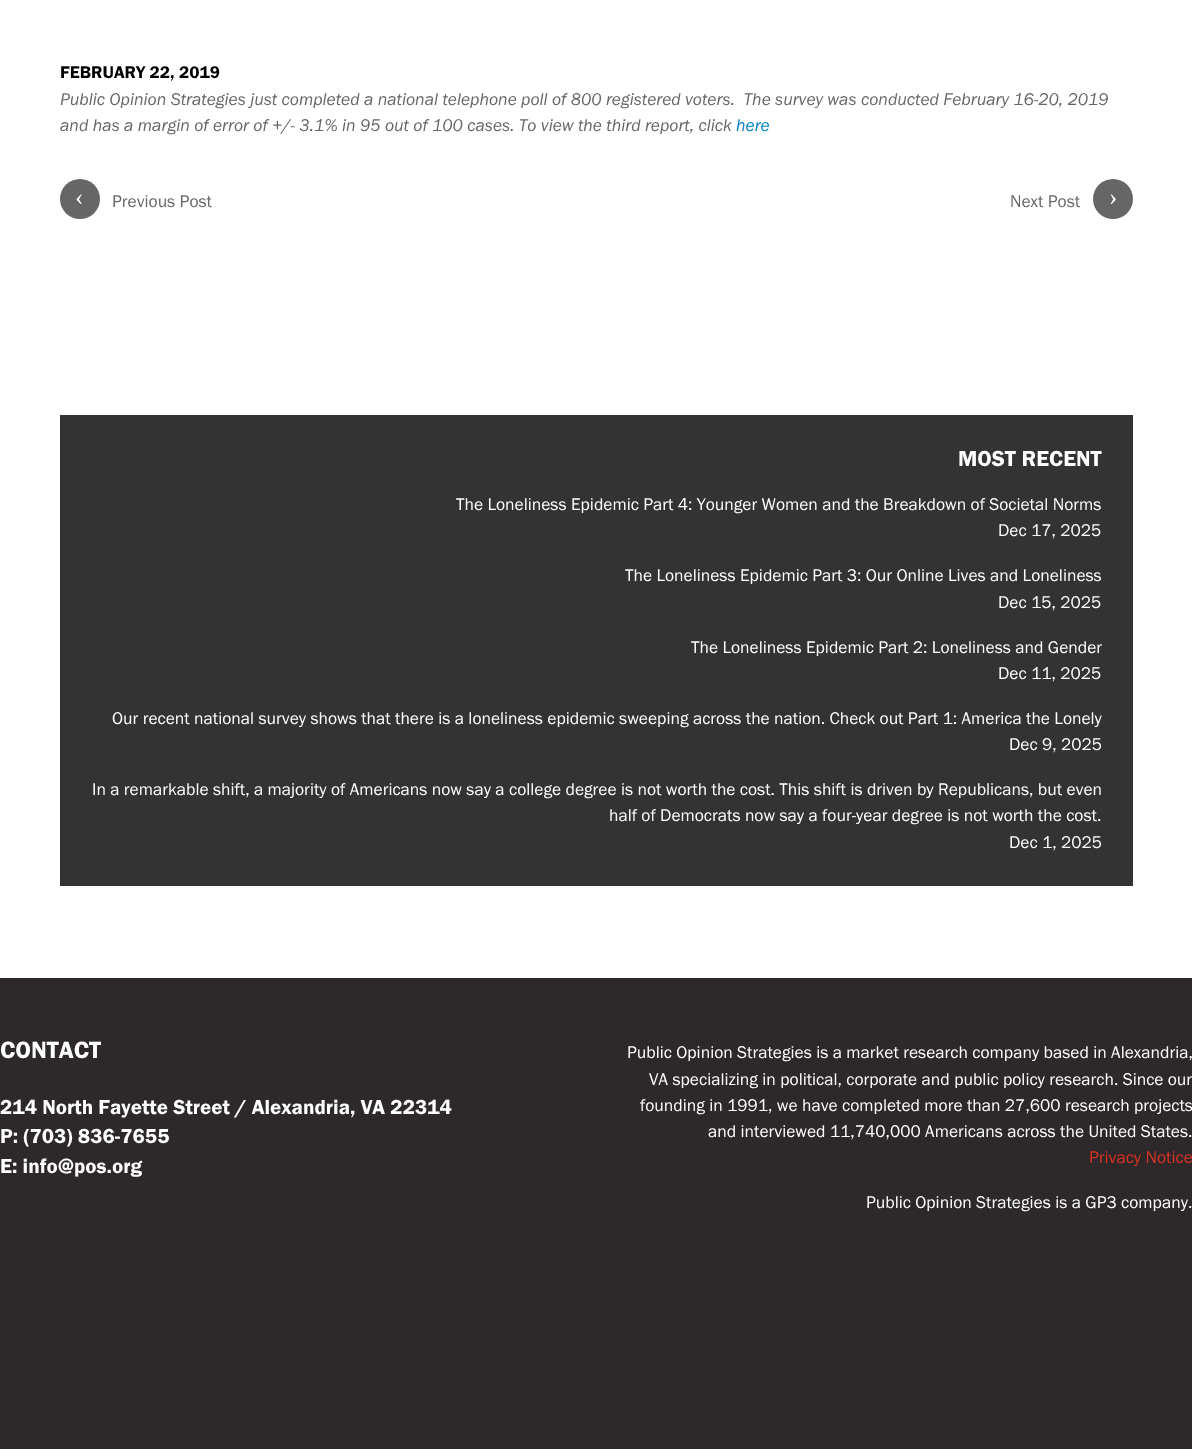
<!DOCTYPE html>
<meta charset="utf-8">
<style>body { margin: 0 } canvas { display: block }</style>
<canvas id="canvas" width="1192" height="1449"></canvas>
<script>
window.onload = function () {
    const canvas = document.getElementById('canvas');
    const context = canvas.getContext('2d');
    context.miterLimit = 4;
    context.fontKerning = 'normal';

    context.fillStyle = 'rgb(45, 41, 42)';
    context.fillRect(0, 0, 1192, 1449);
    context.fillStyle = 'rgb(255, 255, 255)';
    context.fillRect(0, 0, 1192, 978);
    context.fillStyle = 'rgb(102, 102, 102)';
    context.beginPath();
    context.arc(80, 199, 20, 0, 2 * Math.PI);
    context.fill();
    context.beginPath();
    context.arc(1113, 199, 20, 0, 2 * Math.PI);
    context.fill();
    context.fillStyle = 'rgb(51, 51, 51)';
    context.fillRect(60, 415, 1073, 471);
    context.font = '17.5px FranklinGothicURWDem';
    context.fillStyle = 'rgb(0, 0, 0)';
    context.fillText('FEBRUARY 22, 2019', 60, 78);
    context.font = 'italic 17.5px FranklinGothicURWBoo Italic';
    context.fillStyle = 'rgb(102, 102, 102)';
    context.fillText('Public Opinion Strategies just completed a national telephone poll of 800 registered voters.  The survey was conducted February 16-20, 2019', 60, 105);
    context.fillText('and has a margin of error of +/- 3.1% in 95 out of 100 cases. To view the third report, click', 60, 131);
    context.fillStyle = 'rgb(0, 128, 198)';
    context.fillText('here', 736, 131);
    context.font = '25px Liberation Serif';
    context.fillStyle = 'rgb(255, 255, 255)';
    context.fillText('‹', 75, 205);
    context.font = '17.5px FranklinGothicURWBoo';
    context.fillStyle = 'rgb(102, 102, 102)';
    context.fillText('Previous Post', 112, 207);
    context.fillText('Next Post', 1010, 207);
    context.font = '25px Liberation Serif';
    context.fillStyle = 'rgb(255, 255, 255)';
    context.fillText('›', 1109, 205);
    context.font = '22.5px FranklinGothicURWDem';
    context.fillText('MOST RECENT', 958, 466);
    context.font = '17.5px FranklinGothicURWBoo';
    context.fillText('The Loneliness Epidemic Part 4: Younger Women and the Breakdown of Societal Norms', 456, 510);
    context.fillText('Dec 17, 2025', 998, 536);
    context.fillText('The Loneliness Epidemic Part 3: Our Online Lives and Loneliness', 625, 581);
    context.fillText('Dec 15, 2025', 998, 608);
    context.fillText('The Loneliness Epidemic Part 2: Loneliness and Gender', 691, 653);
    context.fillText('Dec 11, 2025', 998, 679);
    context.fillText('Our recent national survey shows that there is a loneliness epidemic sweeping across the nation. Check out Part 1: America the Lonely', 112, 724);
    context.fillText('Dec 9, 2025', 1009, 750);
    context.fillText('In a remarkable shift, a majority of Americans now say a college degree is not worth the cost. This shift is driven by Republicans, but even', 92, 795);
    context.fillText('half of Democrats now say a four-year degree is not worth the cost.', 609, 821);
    context.fillText('Dec 1, 2025', 1009, 848);
    context.font = '24.5px FranklinGothicURWDem';
    context.fillText('CONTACT', 0, 1058);
    context.font = '21px FranklinGothicURWDem';
    context.fillText('214 North Fayette Street / Alexandria, VA 22314', 0, 1114);
    context.fillText('P: (703) 836-7655', 0, 1143);
    context.fillText('E: info@pos.org', 0, 1173);
    context.font = '17.5px FranklinGothicURWBoo';
    context.fillText('Public Opinion Strategies is a market research company based in Alexandria,', 627, 1058);
    context.fillText('VA specializing in political, corporate and public policy research. Since our', 649, 1085);
    context.fillText('founding in 1991, we have completed more than 27,600 research projects', 640, 1111);
    context.fillText('and interviewed 11,740,000 Americans across the United States.', 708, 1137);
    context.fillStyle = 'rgb(221, 49, 36)';
    context.fillText('Privacy Notice', 1089, 1163);
    context.fillStyle = 'rgb(255, 255, 255)';
    context.fillText('Public Opinion Strategies is a GP3 company.', 866, 1208);
};
</script>
